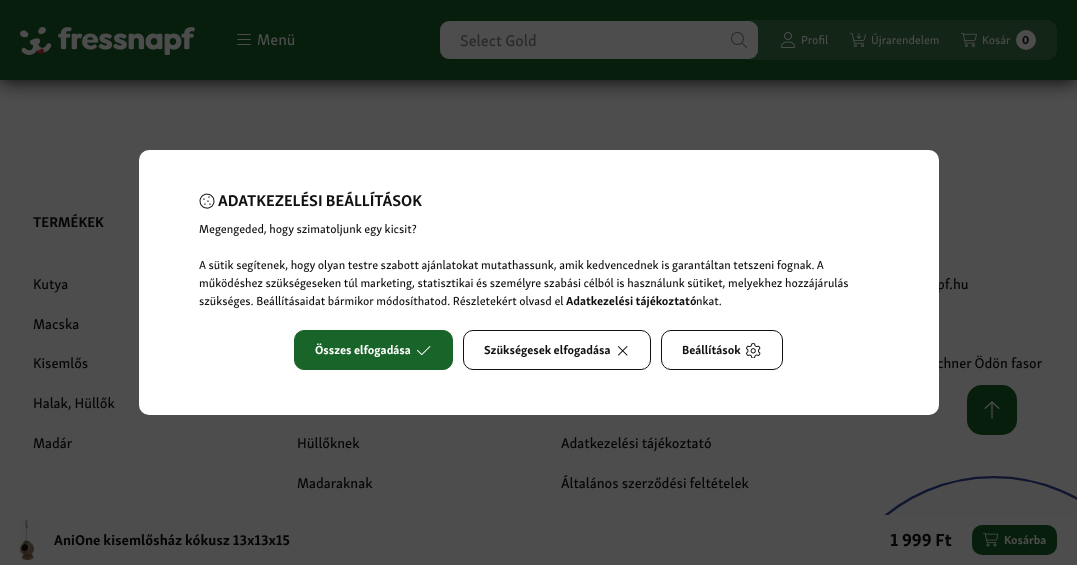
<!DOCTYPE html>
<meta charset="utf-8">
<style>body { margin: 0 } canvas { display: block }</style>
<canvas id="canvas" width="1077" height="565"></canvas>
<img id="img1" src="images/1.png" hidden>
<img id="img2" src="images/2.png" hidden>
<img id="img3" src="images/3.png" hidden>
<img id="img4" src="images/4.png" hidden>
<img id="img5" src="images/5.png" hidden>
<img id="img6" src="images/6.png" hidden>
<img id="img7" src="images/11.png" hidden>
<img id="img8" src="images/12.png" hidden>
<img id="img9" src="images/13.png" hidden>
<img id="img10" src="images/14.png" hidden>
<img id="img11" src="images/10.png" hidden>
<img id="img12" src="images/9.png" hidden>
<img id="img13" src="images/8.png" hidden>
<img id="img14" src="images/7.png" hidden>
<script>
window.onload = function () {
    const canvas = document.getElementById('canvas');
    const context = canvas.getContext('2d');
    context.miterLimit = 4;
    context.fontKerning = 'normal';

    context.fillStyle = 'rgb(77, 77, 77)';
    context.fillRect(0, 0, 1077, 565);
    context.fillStyle = 'rgb(8, 30, 12)';
    context.fillRect(0, 0, 1077, 80);
    context.save();
    context.beginPath();
    context.rect(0, 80, 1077, 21);
    context.clip();
    context.fillStyle = 'rgb(0, 0, 0)';
    context.filter = 'blur(10px)';
    context.beginPath();
    context.rect(0, 0, 1077, 80);
    context.fill();
    context.filter = 'none';
    context.restore();
    context.drawImage(document.getElementById('img1'), 20, 27, 175, 28);
    context.drawImage(document.getElementById('img2'), 237, 34, 14, 11);
    context.fillStyle = 'rgb(18, 37, 22)';
    context.beginPath();
    context.roundRect(739, 20, 318, 40, 10);
    context.fill();
    context.fillStyle = 'rgb(77, 77, 77)';
    context.beginPath();
    context.roundRect(440, 21, 318, 38, 9);
    context.fill();
    context.drawImage(document.getElementById('img3'), 731, 32, 16, 16);
    context.drawImage(document.getElementById('img4'), 781, 32, 14, 16);
    context.drawImage(document.getElementById('img5'), 850, 33, 16, 14);
    context.drawImage(document.getElementById('img6'), 961, 32, 16, 16);
    context.beginPath();
    context.arc(1026, 40, 10, 0, 2 * Math.PI);
    context.fill();
    context.drawImage(document.getElementById('img7'), 884, 476, 193, 39);
    context.fillStyle = 'rgb(8, 30, 12)';
    context.beginPath();
    context.roundRect(967, 385, 50, 50, 15);
    context.fill();
    context.drawImage(document.getElementById('img8'), 984, 401, 16, 18);
    context.drawImage(document.getElementById('img9'), 20, 520, 14, 40);
    context.beginPath();
    context.roundRect(972, 525, 85, 30, 10);
    context.fill();
    context.drawImage(document.getElementById('img10'), 983, 532, 15, 15);
    context.font = '500 16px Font';
    context.fillStyle = 'rgb(77, 77, 77)';
    context.fillText('Menü', 257, 45);
    context.fillStyle = 'rgb(41, 41, 41)';
    context.fillText('Select Gold', 460, 46);
    context.font = '500 12px Font';
    context.fillStyle = 'rgb(77, 77, 77)';
    context.fillText('Profil', 801, 44);
    context.fillText('Újrarendelem', 871, 44);
    context.fillText('Kosár', 982, 44);
    context.font = 'bold 12px Font';
    context.fillStyle = 'rgb(5, 5, 5)';
    context.fillText('0', 1022, 44);
    context.font = 'bold 14.5px Font';
    context.fillText('TERMÉKEK', 33, 227);
    context.font = '500 14.5px Font';
    context.fillText('Kutya', 33, 289);
    context.fillText('Macska', 33, 329);
    context.fillText('Kisemlős', 33, 368);
    context.fillText('Halak, Hüllők', 33, 408);
    context.fillText('Madár', 33, 448);
    context.fillText('pf.hu', 937, 289);
    context.fillText('chner Ödön fasor', 937, 368);
    context.fillStyle = 'rgb(255, 255, 255)';
    context.beginPath();
    context.roundRect(139, 150, 800, 265, 10);
    context.fill();
    context.beginPath();
    context.roundRect(661.5, 330.5, 121, 39, 9.5);
    context.strokeStyle = 'rgb(17, 17, 17)';
    context.stroke();
    context.drawImage(document.getElementById('img11'), 746, 343, 15, 15);
    context.beginPath();
    context.roundRect(463.5, 330.5, 187, 39, 9.5);
    context.stroke();
    context.drawImage(document.getElementById('img12'), 617, 346, 11, 10);
    context.fillStyle = 'rgb(25, 100, 40)';
    context.beginPath();
    context.roundRect(294.5, 330.5, 158, 39, 9.5);
    context.fill();
    context.strokeStyle = 'rgb(25, 100, 40)';
    context.stroke();
    context.drawImage(document.getElementById('img13'), 417, 346, 14, 10);
    context.drawImage(document.getElementById('img14'), 199, 193, 16, 16);
    context.font = 'bold 12px Font';
    context.fillStyle = 'rgb(17, 17, 17)';
    context.fillText('Beállítások', 682, 354);
    context.fillText('Szükségesek elfogadása', 484, 354);
    context.fillStyle = 'rgb(255, 255, 255)';
    context.fillText('Összes elfogadása', 315, 354);
    context.font = '500 12px Font';
    context.fillStyle = 'rgb(17, 17, 17)';
    context.fillText('nkat.', 696, 305);
    context.font = 'bold 12px Font';
    context.fillText('Adatkezelési tájékoztató', 566, 305);
    context.font = '500 12px Font';
    context.fillText('szükséges. Beállításaidat bármikor módosíthatod. Részletekért olvasd el', 199, 305);
    context.fillText('működéshez szükségeseken túl marketing, statisztikai és személyre szabási célból is használunk sütiket, melyekhez hozzájárulás', 199, 287);
    context.fillText('A sütik segítenek, hogy olyan testre szabott ajánlatokat mutathassunk, amik kedvencednek is garantáltan tetszeni fognak. A', 199, 269);
    context.fillText('Megengeded, hogy szimatoljunk egy kicsit?', 199, 233);
    context.font = 'bold 16px Font';
    context.fillText('ADATKEZELÉSI BEÁLLÍTÁSOK', 218, 206);
    context.font = '500 14.5px Font';
    context.fillStyle = 'rgb(5, 5, 5)';
    context.fillText('Hüllőknek', 297, 448);
    context.fillText('Madaraknak', 297, 488);
    context.fillText('Adatkezelési tájékoztató', 561, 448);
    context.fillText('Általános szerződési feltételek', 561, 488);
    context.font = 'bold 14.5px Font';
    context.fillText('AniOne kisemlősház kókusz 13x13x15', 54, 545);
    context.font = 'bold 18px Font';
    context.fillText('1 999 Ft', 890, 546);
    context.font = 'bold 12px Font';
    context.fillStyle = 'rgb(77, 77, 77)';
    context.fillText('Kosárba', 1004, 544);
};
</script>
